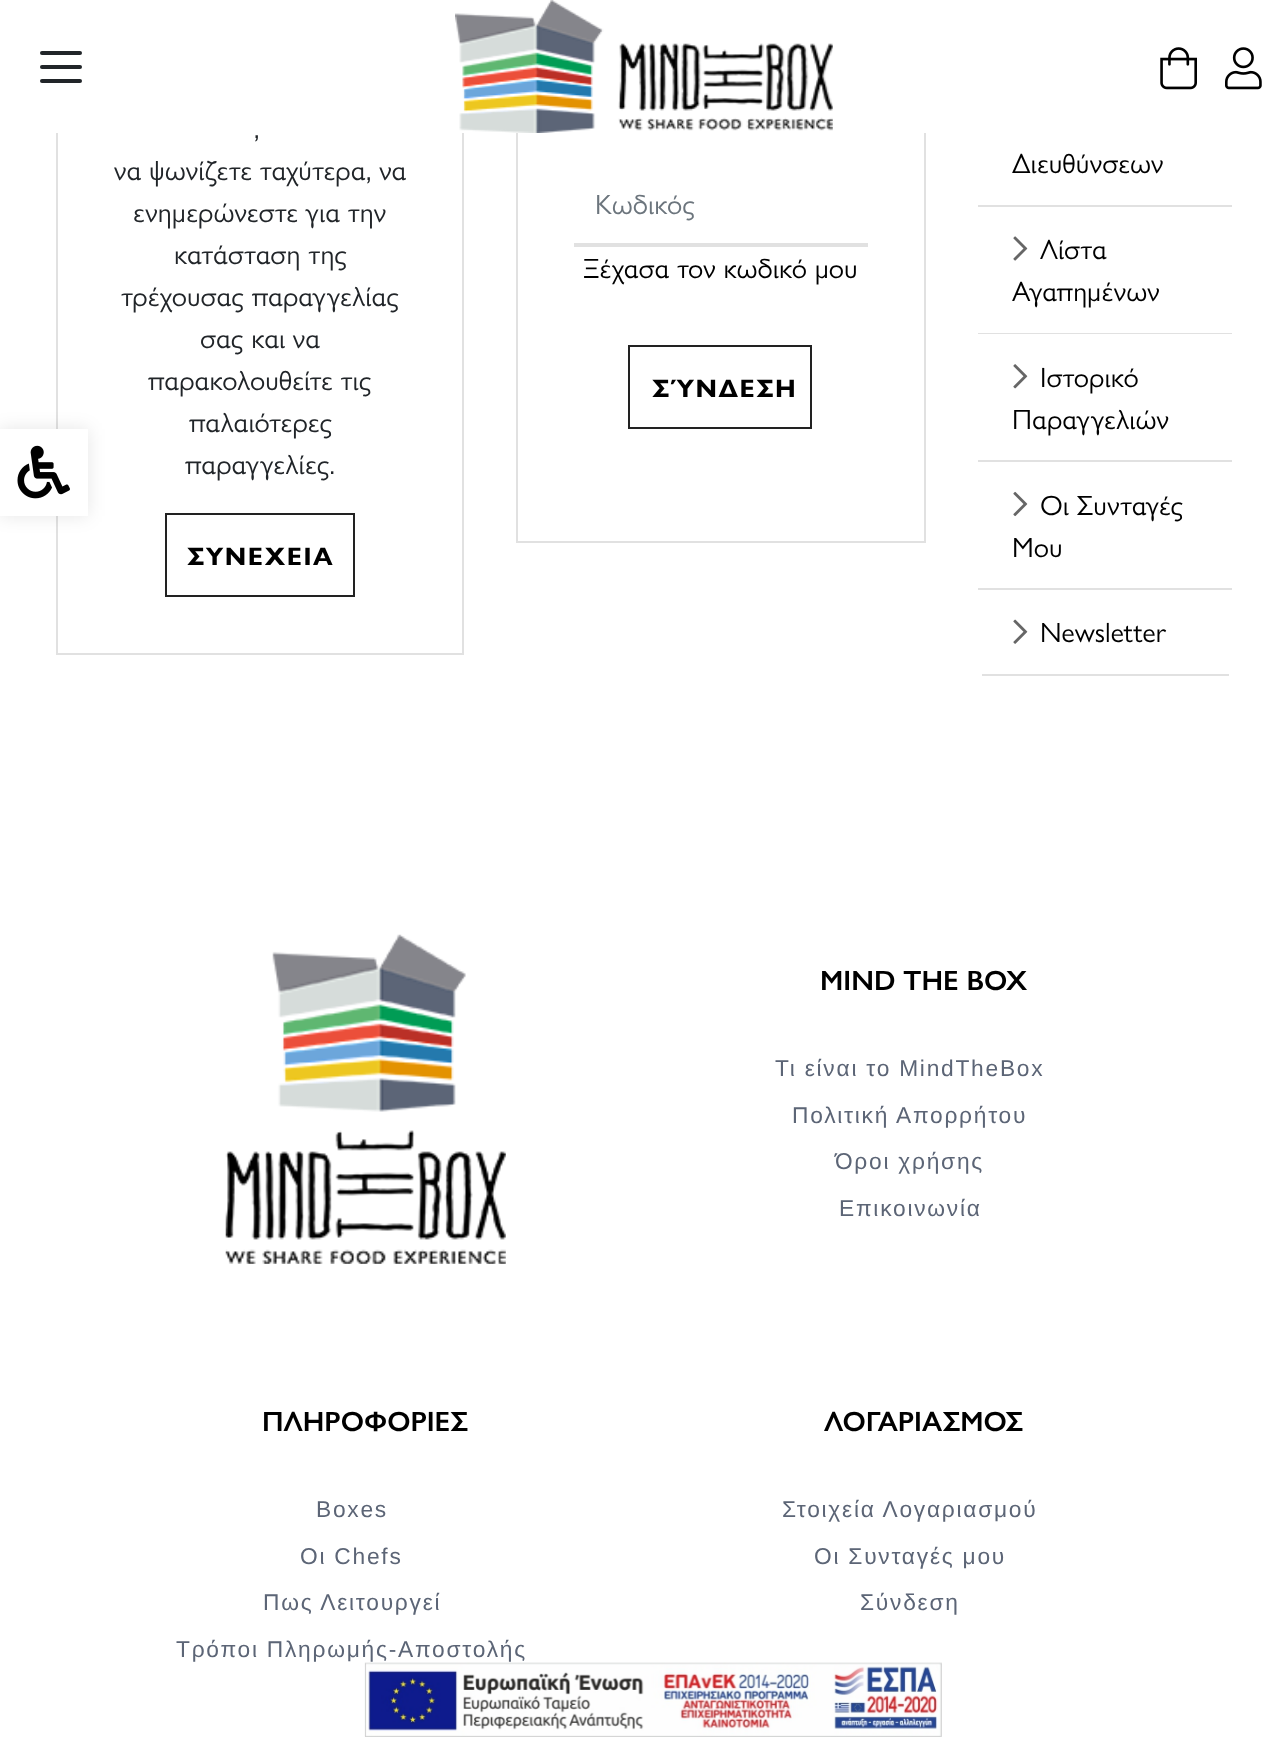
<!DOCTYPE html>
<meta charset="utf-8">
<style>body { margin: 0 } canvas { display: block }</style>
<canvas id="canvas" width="1288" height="1737"></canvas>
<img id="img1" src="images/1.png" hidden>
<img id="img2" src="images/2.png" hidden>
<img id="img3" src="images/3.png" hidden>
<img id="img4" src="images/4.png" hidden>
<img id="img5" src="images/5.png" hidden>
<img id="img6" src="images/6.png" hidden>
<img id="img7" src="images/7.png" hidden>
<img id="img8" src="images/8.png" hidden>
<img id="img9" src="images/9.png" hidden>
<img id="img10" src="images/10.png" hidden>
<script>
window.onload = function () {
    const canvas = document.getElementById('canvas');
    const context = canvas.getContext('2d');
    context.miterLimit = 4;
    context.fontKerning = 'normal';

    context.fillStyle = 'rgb(255, 255, 255)';
    context.fillRect(0, 0, 1288, 1737);
    context.strokeStyle = 'rgb(225, 225, 225)';
    context.lineWidth = 2;
    context.strokeRect(57, -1, 406, 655);
    context.fillRect(56, 429, 2, 87);
    context.save();
    context.beginPath();
    context.moveTo(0, 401);
    context.lineTo(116, 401);
    context.lineTo(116, 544);
    context.lineTo(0, 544);
    context.closePath();
    context.moveTo(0, 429);
    context.lineTo(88, 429);
    context.lineTo(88, 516);
    context.lineTo(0, 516);
    context.closePath();
    context.clip('evenodd');
    context.fillStyle = 'rgba(0, 0, 0, 0.1)';
    context.filter = 'blur(9px)';
    context.beginPath();
    context.rect(0, 429, 88, 87);
    context.fill();
    context.filter = 'none';
    context.restore();
    context.drawImage(document.getElementById('img1'), 17, 445, 53, 54);
    context.strokeRect(517, -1, 408, 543);
    context.fillRect(56, 0, 870, 133);
    context.fillStyle = 'rgb(33, 37, 41)';
    context.beginPath();
    context.roundRect(40, 51, 42, 4, 2);
    context.fill();
    context.beginPath();
    context.roundRect(40, 65, 42, 4, 2);
    context.fill();
    context.beginPath();
    context.roundRect(40, 79, 42, 4, 2);
    context.fill();
    context.drawImage(document.getElementById('img2'), 455, 0, 378, 133);
    context.drawImage(document.getElementById('img3'), 1160, 47, 37, 43);
    context.drawImage(document.getElementById('img4'), 1225, 47, 37, 43);
    context.strokeStyle = 'rgb(34, 34, 34)';
    context.strokeRect(166, 514, 188, 82);
    context.fillStyle = 'rgb(225, 225, 225)';
    context.fillRect(574, 243, 294, 4);
    context.strokeRect(629, 346, 182, 82);
    context.fillRect(978, 205, 254, 2);
    context.fillRect(978, 333, 254, 1);
    context.drawImage(document.getElementById('img5'), 1013, 236, 15, 25);
    context.fillRect(978, 460, 254, 2);
    context.drawImage(document.getElementById('img6'), 1013, 364, 15, 25);
    context.fillRect(978, 588, 254, 2);
    context.drawImage(document.getElementById('img7'), 1013, 491, 15, 26);
    context.fillRect(982, 674, 247, 2);
    context.drawImage(document.getElementById('img8'), 1013, 619, 15, 25);
    context.drawImage(document.getElementById('img9'), 225, 934, 281, 330);
    context.drawImage(document.getElementById('img10'), 364, 1662, 578, 75);
    context.font = '28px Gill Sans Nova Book';
    context.fillStyle = 'rgb(33, 37, 41)';
    context.fillText(',', 254, 138);
    context.fillText('να ψωνίζετε ταχύτερα, να', 114, 180);
    context.fillText('ενημερώνεστε για την', 133, 222);
    context.fillText('κατάσταση της', 174, 264);
    context.fillText('τρέχουσας παραγγελίας', 121, 306);
    context.fillText('σας και να', 200, 348);
    context.fillText('παρακολουθείτε τις', 148, 390);
    context.fillText('παλαιότερες', 189, 432);
    context.fillText('παραγγελίες.', 185, 474);
    context.letterSpacing = '1.5px';
    context.font = 'bold 25.25px Gill Sans Nova Book';
    context.fillStyle = 'rgb(0, 0, 0)';
    context.fillText('ΣΥΝΕΧΕΙΑ', 187, 565);
    context.letterSpacing = '0px';
    context.font = '28px Gill Sans Nova Book';
    context.fillStyle = 'rgb(108, 117, 125)';
    context.fillText('Κωδικός', 595, 214);
    context.fillStyle = 'rgb(0, 0, 0)';
    context.fillText('Ξέχασα τον κωδικό μου', 583, 278);
    context.letterSpacing = '1.5px';
    context.font = 'bold 25.25px Gill Sans Nova Book';
    context.fillText('ΣΎΝΔΕΣΗ', 652, 397);
    context.letterSpacing = '0px';
    context.font = '28px Gill Sans Nova Book';
    context.fillText('Διευθύνσεων', 1012, 173);
    context.fillText('Λίστα', 1040, 259);
    context.fillText('Αγαπημένων', 1012, 301);
    context.fillText('Ιστορικό', 1040, 387);
    context.fillText('Παραγγελιών', 1012, 429);
    context.fillText('Οι Συνταγές', 1040, 515);
    context.fillText('Μου', 1012, 557);
    context.fillText('Newsletter', 1040, 642);
    context.font = '600 28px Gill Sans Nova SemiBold';
    context.fillText('MIND THE BOX', 820, 990);
    context.letterSpacing = '1.75px';
    context.font = '22.75px Liberation Sans';
    context.fillStyle = 'rgb(92, 101, 118)';
    context.fillText('Τι είναι το MindTheBox', 775, 1076);
    context.fillText('Πολιτική Απορρήτου', 792, 1123);
    context.fillText('Όροι χρήσης', 835, 1169);
    context.fillText('Eπικοινωνία', 839, 1216);
    context.letterSpacing = '0px';
    context.font = '600 28px Gill Sans Nova SemiBold';
    context.fillStyle = 'rgb(0, 0, 0)';
    context.fillText('ΠΛΗΡΟΦΟΡΙΕΣ', 262, 1431);
    context.letterSpacing = '1.75px';
    context.font = '22.75px Liberation Sans';
    context.fillStyle = 'rgb(92, 101, 118)';
    context.fillText('Boxes', 316, 1517);
    context.fillText('Οι Chefs', 300, 1564);
    context.fillText('Πως Λειτουργεί', 263, 1610);
    context.fillText('Τρόποι Πληρωμής-Αποστολής', 176, 1657);
    context.letterSpacing = '0px';
    context.font = '600 28px Gill Sans Nova SemiBold';
    context.fillStyle = 'rgb(0, 0, 0)';
    context.fillText('ΛΟΓΑΡΙΑΣΜΟΣ', 824, 1431);
    context.letterSpacing = '1.75px';
    context.font = '22.75px Liberation Sans';
    context.fillStyle = 'rgb(92, 101, 118)';
    context.fillText('Στοιχεία Λογαριασμού', 782, 1517);
    context.fillText('Οι Συνταγές μου', 814, 1564);
    context.fillText('Σύνδεση', 860, 1610);
};
</script>
